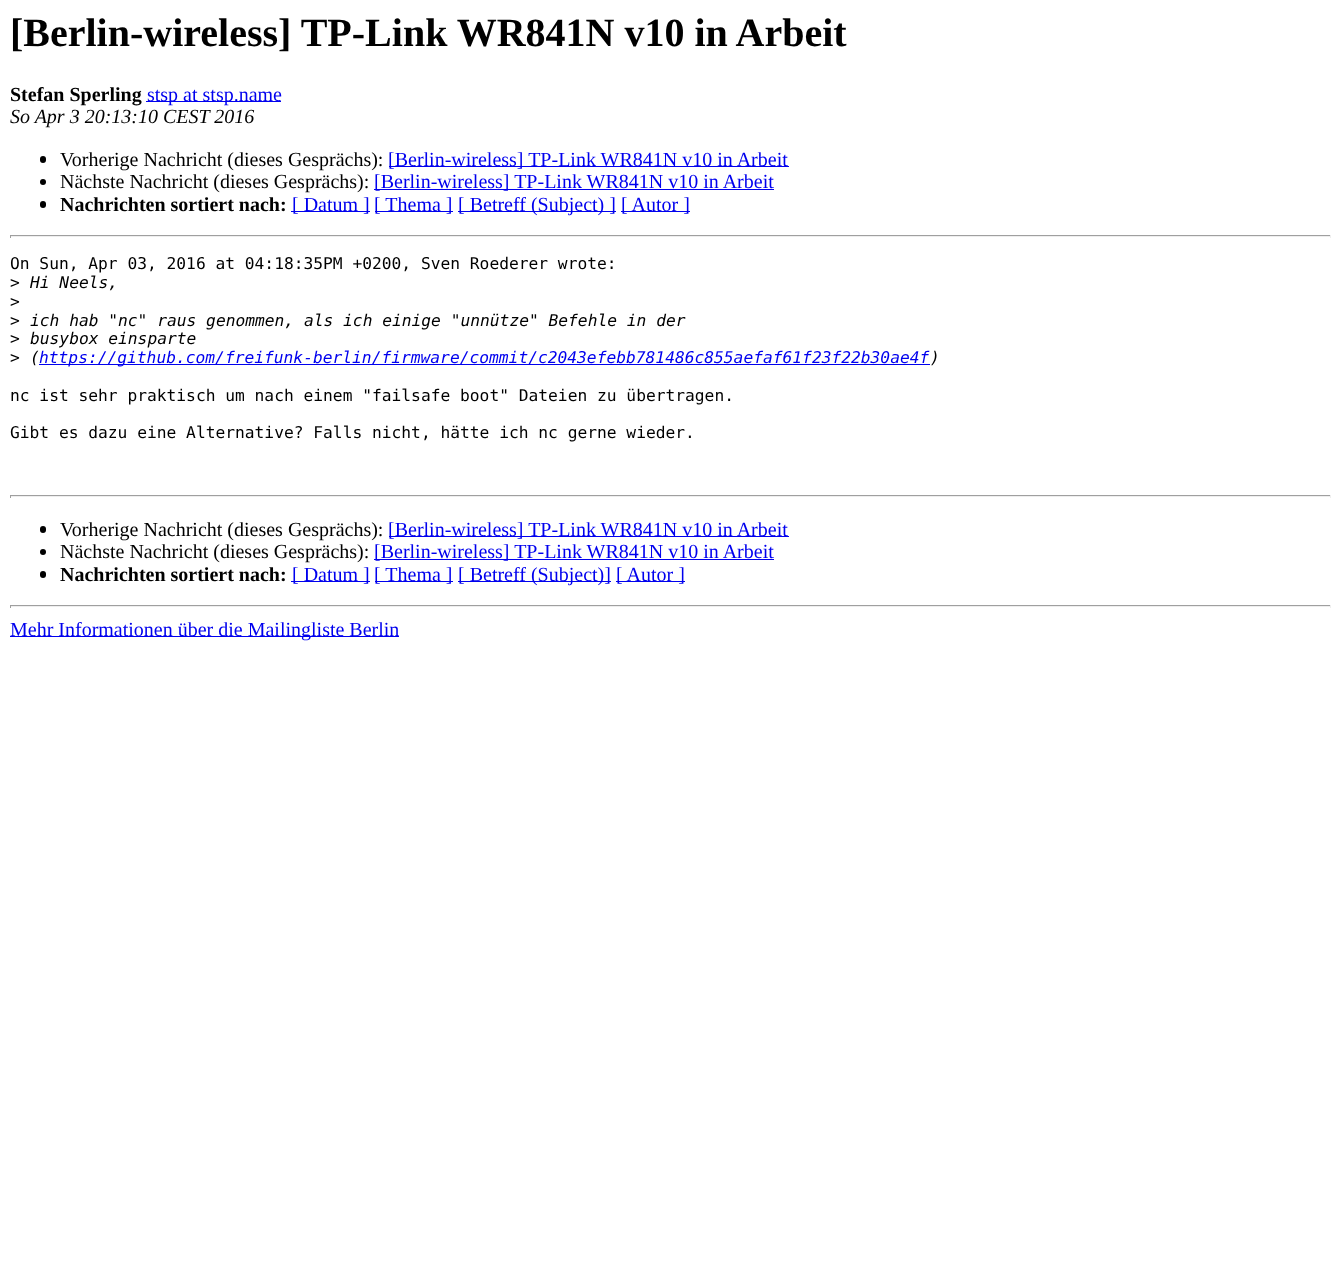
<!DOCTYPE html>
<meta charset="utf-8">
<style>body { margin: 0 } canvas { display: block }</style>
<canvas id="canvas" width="1341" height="1281"></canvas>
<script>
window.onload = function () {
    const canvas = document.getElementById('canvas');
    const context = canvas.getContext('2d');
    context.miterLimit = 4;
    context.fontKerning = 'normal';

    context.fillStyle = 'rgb(255, 255, 255)';
    context.fillRect(0, 0, 1341, 1281);
    context.fillStyle = 'rgb(0, 0, 238)';
    context.fillRect(146, 101, 135, 1);
    context.fillStyle = 'rgb(0, 0, 0)';
    context.beginPath();
    context.roundRect(40, 156, 6, 7, 3);
    context.fill();
    context.fillStyle = 'rgb(0, 0, 238)';
    context.fillRect(389, 166, 400, 1);
    context.fillStyle = 'rgb(0, 0, 0)';
    context.beginPath();
    context.arc(43, 182, 3, 0, 2 * Math.PI);
    context.fill();
    context.fillStyle = 'rgb(0, 0, 238)';
    context.fillRect(374, 189, 400, 1);
    context.fillStyle = 'rgb(0, 0, 0)';
    context.beginPath();
    context.roundRect(40, 201, 6, 7, 3);
    context.fill();
    context.fillStyle = 'rgb(0, 0, 238)';
    context.fillRect(291, 211, 79, 1);
    context.fillRect(375, 211, 78, 1);
    context.fillRect(458, 211, 158, 1);
    context.fillRect(621, 211, 69, 1);
    context.fillStyle = 'rgb(159, 159, 159)';
    context.fillRect(10, 235, 1321, 1);
    context.fillStyle = 'rgb(238, 238, 238)';
    context.fillRect(1330, 235, 1, 3);
    context.fillRect(10, 236, 1321, 1);
    context.fillStyle = 'rgb(159, 159, 159)';
    context.fillRect(10, 235, 1, 3);
    context.fillStyle = 'rgb(0, 0, 238)';
    context.fillRect(39, 364, 891, 1);
    context.fillStyle = 'rgb(159, 159, 159)';
    context.fillRect(10, 495, 1321, 1);
    context.fillStyle = 'rgb(238, 238, 238)';
    context.fillRect(1330, 495, 1, 3);
    context.fillRect(10, 496, 1321, 1);
    context.fillStyle = 'rgb(159, 159, 159)';
    context.fillRect(10, 495, 1, 3);
    context.fillStyle = 'rgb(0, 0, 0)';
    context.beginPath();
    context.roundRect(40, 526, 6, 7, 3);
    context.fill();
    context.fillStyle = 'rgb(0, 0, 238)';
    context.fillRect(389, 536, 400, 1);
    context.fillStyle = 'rgb(0, 0, 0)';
    context.beginPath();
    context.arc(43, 552, 3, 0, 2 * Math.PI);
    context.fill();
    context.fillStyle = 'rgb(0, 0, 238)';
    context.fillRect(374, 559, 400, 1);
    context.fillStyle = 'rgb(0, 0, 0)';
    context.beginPath();
    context.roundRect(40, 571, 6, 7, 3);
    context.fill();
    context.fillStyle = 'rgb(0, 0, 238)';
    context.fillRect(291, 581, 79, 1);
    context.fillRect(375, 581, 78, 1);
    context.fillRect(458, 581, 153, 1);
    context.fillRect(616, 581, 69, 1);
    context.fillStyle = 'rgb(159, 159, 159)';
    context.fillRect(10, 605, 1321, 1);
    context.fillStyle = 'rgb(238, 238, 238)';
    context.fillRect(1330, 605, 1, 3);
    context.fillRect(10, 606, 1321, 1);
    context.fillStyle = 'rgb(159, 159, 159)';
    context.fillRect(10, 605, 1, 3);
    context.fillStyle = 'rgb(0, 0, 238)';
    context.fillRect(10, 636, 389, 1);
    context.font = 'bold 40px Liberation Serif';
    context.fillStyle = 'rgb(0, 0, 0)';
    context.fillText('[Berlin-wireless] TP-Link WR841N v10 in Arbeit', 10, 46);
    context.font = 'bold 20px Liberation Serif';
    context.fillText('Stefan Sperling', 10, 101);
    context.font = '20px Liberation Serif';
    context.fillStyle = 'rgb(0, 0, 238)';
    context.fillText('stsp at stsp.name', 147, 101);
    context.font = 'italic 20px Liberation Serif';
    context.fillStyle = 'rgb(0, 0, 0)';
    context.fillText('So Apr 3 20:13:10 CEST 2016', 10, 123);
    context.font = '20px Liberation Serif';
    context.fillText('Vorherige Nachricht (dieses Gesprächs):', 60, 166);
    context.fillStyle = 'rgb(0, 0, 238)';
    context.fillText('[Berlin-wireless] TP-Link WR841N v10 in Arbeit', 388, 166);
    context.fillStyle = 'rgb(0, 0, 0)';
    context.fillText('Nächste Nachricht (dieses Gesprächs):', 60, 188);
    context.fillStyle = 'rgb(0, 0, 238)';
    context.fillText('[Berlin-wireless] TP-Link WR841N v10 in Arbeit', 374, 188);
    context.font = 'bold 20px Liberation Serif';
    context.fillStyle = 'rgb(0, 0, 0)';
    context.fillText('Nachrichten sortiert nach:', 60, 211);
    context.font = '20px Liberation Serif';
    context.fillStyle = 'rgb(0, 0, 238)';
    context.fillText('[ Datum ]', 292, 211);
    context.fillText('[ Thema ]', 374, 211);
    context.fillText('[ Betreff (Subject) ]', 458, 211);
    context.fillText('[ Autor ]', 621, 211);
    context.font = '16.25px DejaVu Sans Mono';
    context.fillStyle = 'rgb(0, 0, 0)';
    context.fillText('On Sun, Apr 03, 2016 at 04:18:35PM +0200, Sven Roederer wrote:', 10, 269);
    context.fillText('>', 10, 288);
    context.font = 'italic 16.25px DejaVu Sans Mono';
    context.fillText('Hi Neels,', 30, 288);
    context.font = '16.25px DejaVu Sans Mono';
    context.fillText('>', 10, 307);
    context.fillText('>', 10, 326);
    context.font = 'italic 16.25px DejaVu Sans Mono';
    context.fillText('ich hab "nc" raus genommen, als ich einige "unnütze" Befehle in der', 30, 326);
    context.font = '16.25px DejaVu Sans Mono';
    context.fillText('>', 10, 344);
    context.font = 'italic 16.25px DejaVu Sans Mono';
    context.fillText('busybox einsparte', 30, 344);
    context.font = '16.25px DejaVu Sans Mono';
    context.fillText('>', 10, 363);
    context.font = 'italic 16.25px DejaVu Sans Mono';
    context.fillText('(', 30, 363);
    context.fillStyle = 'rgb(0, 0, 238)';
    context.fillText('https://github.com/freifunk-berlin/firmware/commit/c2043efebb781486c855aefaf61f23f22b30ae4f', 39, 363);
    context.fillStyle = 'rgb(0, 0, 0)';
    context.fillText(')', 930, 363);
    context.font = '16.25px DejaVu Sans Mono';
    context.fillText('nc ist sehr praktisch um nach einem "failsafe boot" Dateien zu übertragen.', 10, 401);
    context.fillText('Gibt es dazu eine Alternative? Falls nicht, hätte ich nc gerne wieder.', 10, 438);
    context.font = '20px Liberation Serif';
    context.fillText('Vorherige Nachricht (dieses Gesprächs):', 60, 536);
    context.fillStyle = 'rgb(0, 0, 238)';
    context.fillText('[Berlin-wireless] TP-Link WR841N v10 in Arbeit', 388, 536);
    context.fillStyle = 'rgb(0, 0, 0)';
    context.fillText('Nächste Nachricht (dieses Gesprächs):', 60, 558);
    context.fillStyle = 'rgb(0, 0, 238)';
    context.fillText('[Berlin-wireless] TP-Link WR841N v10 in Arbeit', 374, 558);
    context.font = 'bold 20px Liberation Serif';
    context.fillStyle = 'rgb(0, 0, 0)';
    context.fillText('Nachrichten sortiert nach:', 60, 581);
    context.font = '20px Liberation Serif';
    context.fillStyle = 'rgb(0, 0, 238)';
    context.fillText('[ Datum ]', 292, 581);
    context.fillText('[ Thema ]', 374, 581);
    context.fillText('[ Betreff (Subject)]', 458, 581);
    context.fillText('[ Autor ]', 616, 581);
    context.fillText('Mehr Informationen über die Mailingliste Berlin', 10, 636);
};
</script>
